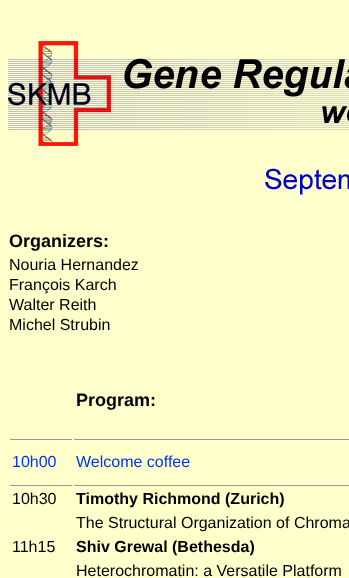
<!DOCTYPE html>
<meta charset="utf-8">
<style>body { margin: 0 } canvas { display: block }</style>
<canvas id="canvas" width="349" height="578"></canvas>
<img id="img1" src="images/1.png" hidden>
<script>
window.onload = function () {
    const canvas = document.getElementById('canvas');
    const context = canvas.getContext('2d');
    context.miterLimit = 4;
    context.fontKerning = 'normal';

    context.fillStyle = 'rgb(255, 255, 204)';
    context.fillRect(0, 0, 349, 578);
    context.drawImage(document.getElementById('img1'), 8, 41, 341, 154);
    context.fillStyle = 'rgb(153, 153, 153)';
    context.fillRect(10, 439, 62, 1);
    context.fillRect(10, 485, 62, 1);
    context.fillRect(74, 439, 275, 1);
    context.fillRect(74, 485, 275, 1);
    context.font = 'bold 18px Liberation Sans';
    context.fillStyle = 'rgb(0, 0, 0)';
    context.fillText('Organizers:', 9, 247);
    context.font = '16px Liberation Sans';
    context.fillText('Nouria Hernandez', 9, 270);
    context.fillText('François Karch', 9, 290);
    context.fillText('Walter Reith', 9, 310);
    context.fillText('Michel Strubin', 9, 330);
    context.font = 'bold 18px Liberation Sans';
    context.fillText('Program:', 76, 406);
    context.font = '16px Liberation Sans';
    context.fillStyle = 'rgb(0, 51, 255)';
    context.fillText('10h00', 12, 467);
    context.fillText('Welcome coffee', 76, 467);
    context.fillStyle = 'rgb(0, 0, 0)';
    context.fillText('10h30', 12, 504);
    context.font = 'bold 16px Liberation Sans';
    context.fillText('Timothy Richmond (Zurich)', 76, 504);
    context.font = '16px Liberation Sans';
    context.fillText('The Structural Organization of Chroma', 76, 528);
    context.fillText('11h15', 12, 552);
    context.font = 'bold 16px Liberation Sans';
    context.fillText('Shiv Grewal (Bethesda)', 76, 552);
    context.font = '16px Liberation Sans';
    context.fillText('Heterochromatin: a Versatile Platform', 76, 576);
};
</script>
